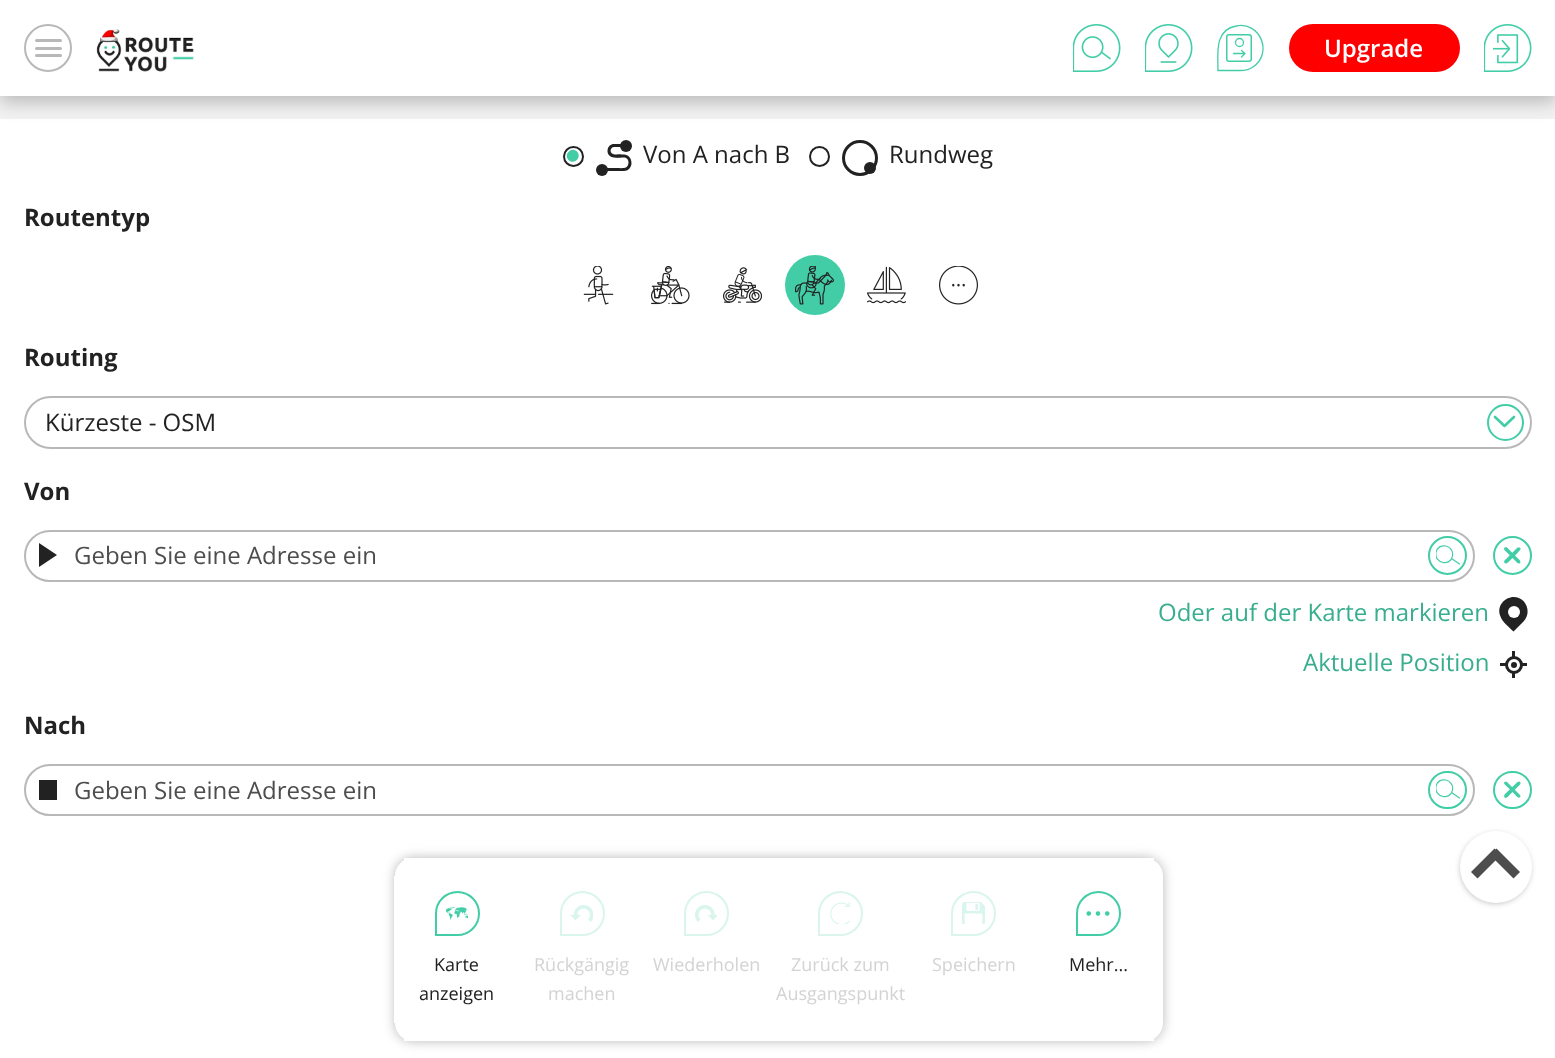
<!DOCTYPE html>
<meta charset="utf-8">
<style>body { margin: 0 } canvas { display: block }</style>
<canvas id="canvas" width="1555" height="1058"></canvas>
<img id="img1" src="images/1.png" hidden>
<img id="img2" src="images/2.png" hidden>
<img id="img3" src="images/3.png" hidden>
<img id="img4" src="images/4.png" hidden>
<img id="img5" src="images/5.png" hidden>
<img id="img6" src="images/6.png" hidden>
<img id="img7" src="images/7.png" hidden>
<img id="img8" src="images/8.png" hidden>
<img id="img9" src="images/9.png" hidden>
<img id="img10" src="images/10.png" hidden>
<img id="img11" src="images/11.png" hidden>
<img id="img12" src="images/12.png" hidden>
<img id="img13" src="images/13.png" hidden>
<img id="img14" src="images/14.png" hidden>
<img id="img15" src="images/15.png" hidden>
<img id="img16" src="images/16.png" hidden>
<script>
window.onload = function () {
    const canvas = document.getElementById('canvas');
    const context = canvas.getContext('2d');
    context.miterLimit = 4;
    context.fontKerning = 'normal';

    context.fillStyle = 'rgb(255, 255, 255)';
    context.fillRect(0, 0, 1555, 1058);
    context.fillStyle = 'rgb(242, 242, 242)';
    context.fillRect(0, 96, 1555, 23);
    context.fillStyle = 'rgb(184, 184, 184)';
    context.filter = 'blur(9px)';
    context.beginPath();
    context.rect(0, 6, 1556, 96);
    context.fill();
    context.filter = 'none';
    context.fillStyle = 'rgb(255, 255, 255)';
    context.fillRect(0, 0, 1555, 96);
    context.beginPath();
    context.arc(48, 48, 23, 0, 2 * Math.PI);
    context.strokeStyle = 'rgb(184, 184, 184)';
    context.lineWidth = 2;
    context.stroke();
    context.fillStyle = 'rgb(184, 184, 184)';
    context.beginPath();
    context.roundRect(35, 39, 27, 3, 1.5);
    context.fill();
    context.beginPath();
    context.roundRect(35, 47, 27, 3, 1.5);
    context.fill();
    context.beginPath();
    context.roundRect(35, 54, 27, 3, 1.5);
    context.fill();
    context.drawImage(document.getElementById('img1'), 96, 29, 98, 43);
    context.drawImage(document.getElementById('img2'), 1073, 24, 48, 48);
    context.drawImage(document.getElementById('img3'), 1145, 24, 48, 48);
    context.beginPath();
    context.moveTo(1240.5, 70.5);
    context.lineTo(1218, 70.5);
    context.bezierCurveTo(1218, 54, 1214, 30, 1236, 26);
    context.bezierCurveTo(1260, 21, 1273.5, 53, 1253, 67);
    context.bezierCurveTo(1249.5, 69.5, 1245, 70.5, 1240.5, 70.5);
    context.closePath();
    context.strokeStyle = 'rgb(66, 205, 167)';
    context.lineWidth = 1.3;
    context.stroke();
    context.beginPath();
    context.arc(1239.5, 42.5, 4, 0, 2 * Math.PI);
    context.stroke();
    context.beginPath();
    context.roundRect(1226.75, 34.75, 24.5, 26.5, 2.25);
    context.lineWidth = 1.5;
    context.stroke();
    context.beginPath();
    context.moveTo(1233.5, 53.5);
    context.lineTo(1245, 53.5);
    context.moveTo(1241.5, 50.5);
    context.lineTo(1245, 53.5);
    context.lineTo(1241.5, 57);
    context.lineWidth = 1.3;
    context.lineCap = 'round';
    context.lineJoin = 'round';
    context.stroke();
    context.fillStyle = 'rgb(255, 0, 0)';
    context.beginPath();
    context.roundRect(1289, 24, 171, 48, 24);
    context.fill();
    context.drawImage(document.getElementById('img4'), 1484, 24, 48, 48);
    context.beginPath();
    context.arc(573.5, 156.5, 9.5, 0, 2 * Math.PI);
    context.strokeStyle = 'rgb(34, 34, 34)';
    context.lineWidth = 2;
    context.stroke();
    context.fillStyle = 'rgb(34, 34, 34)';
    context.beginPath();
    context.arc(602, 170, 6, 0, 2 * Math.PI);
    context.fill();
    context.beginPath();
    context.arc(626, 146, 6, 0, 2 * Math.PI);
    context.fill();
    context.beginPath();
    context.moveTo(614, 144);
    context.lineTo(621, 144);
    context.lineTo(621, 157.5);
    context.bezierCurveTo(618, 157.5, 614.5, 158, 611.5, 157);
    context.bezierCurveTo(605, 154, 607, 144, 614, 144);
    context.closePath();
    context.moveTo(614, 147);
    context.lineTo(621, 147);
    context.lineTo(621, 154.5);
    context.bezierCurveTo(619, 154.5, 615, 155, 613, 154);
    context.bezierCurveTo(609, 152.5, 610.5, 147, 614, 147);
    context.closePath();
    context.fill('evenodd');
    context.beginPath();
    context.moveTo(616.5, 154.5);
    context.lineTo(624, 154.5);
    context.bezierCurveTo(628, 154.5, 631.5, 158, 631.5, 163);
    context.bezierCurveTo(631.5, 167.5, 628, 171, 624, 171);
    context.lineTo(616.5, 171);
    context.closePath();
    context.moveTo(616.5, 157.5);
    context.lineTo(625, 157.5);
    context.bezierCurveTo(629.5, 158.5, 629.5, 165.5, 626, 167.5);
    context.bezierCurveTo(623.5, 168.5, 619, 168, 616.5, 168);
    context.closePath();
    context.fill('evenodd');
    context.fillRect(606, 168, 12, 3);
    context.fillStyle = 'rgb(66, 205, 167)';
    context.beginPath();
    context.moveTo(577, 151.5);
    context.bezierCurveTo(582.5, 157, 574, 165.5, 568.5, 160);
    context.bezierCurveTo(563, 154.5, 571.5, 146, 577, 151.5);
    context.closePath();
    context.fill();
    context.beginPath();
    context.arc(819.5, 156.5, 9.5, 0, 2 * Math.PI);
    context.stroke();
    context.beginPath();
    context.arc(860, 158, 16.5, 0, 2 * Math.PI);
    context.lineWidth = 3;
    context.stroke();
    context.fillStyle = 'rgb(34, 34, 34)';
    context.beginPath();
    context.arc(870, 168, 6, 0, 2 * Math.PI);
    context.fill();
    context.drawImage(document.getElementById('img5'), 583, 266, 31, 39);
    context.drawImage(document.getElementById('img6'), 651, 266, 39, 39);
    context.drawImage(document.getElementById('img7'), 723, 267, 39, 36);
    context.fillStyle = 'rgb(66, 205, 167)';
    context.beginPath();
    context.arc(815, 285, 30, 0, 2 * Math.PI);
    context.fill();
    context.drawImage(document.getElementById('img8'), 795, 266, 39, 39);
    context.drawImage(document.getElementById('img9'), 867, 266, 39, 38);
    context.drawImage(document.getElementById('img10'), 939, 266, 39, 39);
    context.beginPath();
    context.roundRect(25, 397, 1506, 51, 25.5);
    context.strokeStyle = 'rgb(184, 184, 184)';
    context.lineWidth = 2;
    context.lineJoin = 'miter';
    context.stroke();
    context.beginPath();
    context.arc(1505.5, 422.5, 17.5, 0, 2 * Math.PI);
    context.strokeStyle = 'rgb(66, 205, 167)';
    context.stroke();
    context.beginPath();
    context.moveTo(1514, 417);
    context.lineTo(1504.5, 426);
    context.lineTo(1495, 417);
    context.lineWidth = 2.6;
    context.lineJoin = 'round';
    context.stroke();
    context.beginPath();
    context.roundRect(25, 531, 1449, 50, 25);
    context.strokeStyle = 'rgb(184, 184, 184)';
    context.lineWidth = 2;
    context.lineJoin = 'miter';
    context.stroke();
    context.fillStyle = 'rgb(34, 34, 34)';
    context.beginPath();
    context.moveTo(39, 567);
    context.lineTo(39, 543);
    context.lineTo(57, 555);
    context.closePath();
    context.fill();
    context.beginPath();
    context.arc(1447.5, 555.5, 18.5, 0, 2 * Math.PI);
    context.strokeStyle = 'rgb(66, 205, 167)';
    context.stroke();
    context.save();
    context.beginPath();
    context.rect(1436, 543, 25, 26);
    context.clip();
    context.beginPath();
    context.moveTo(1436, 552.5);
    context.bezierCurveTo(1438, 541.5, 1454.5, 545, 1452.5, 556);
    context.bezierCurveTo(1450.5, 567, 1434, 563.5, 1436, 552.5);
    context.closePath();
    context.lineWidth = 1.2;
    context.stroke();
    context.restore();
    context.beginPath();
    context.moveTo(1451.5, 558.5);
    context.lineTo(1459.5, 564);
    context.lineWidth = 1.2;
    context.stroke();
    context.beginPath();
    context.arc(1512.5, 555.5, 18.5, 0, 2 * Math.PI);
    context.lineWidth = 2;
    context.stroke();
    context.fillStyle = 'rgb(66, 205, 167)';
    context.beginPath();
    context.moveTo(1507, 547.5);
    context.lineTo(1520, 560.5);
    context.lineTo(1520.5, 562.5);
    context.bezierCurveTo(1519, 565.5, 1516, 561.5, 1515.5, 561);
    context.lineTo(1507, 552.5);
    context.bezierCurveTo(1506, 551.5, 1503, 549.5, 1504.5, 547.5);
    context.bezierCurveTo(1505.5, 547, 1506.5, 547, 1507, 547.5);
    context.closePath();
    context.fill();
    context.beginPath();
    context.moveTo(1504.5, 560.5);
    context.lineTo(1517.5, 547.5);
    context.lineTo(1519.5, 547.5);
    context.bezierCurveTo(1522.5, 548.5, 1518.5, 551.5, 1518, 552.5);
    context.lineTo(1509.5, 561);
    context.bezierCurveTo(1508.5, 562, 1506.5, 564.5, 1504.5, 563);
    context.bezierCurveTo(1504, 562, 1504, 561, 1504.5, 560.5);
    context.closePath();
    context.fill();
    context.fillStyle = 'rgb(34, 34, 34)';
    context.beginPath();
    context.moveTo(1523.5, 601);
    context.bezierCurveTo(1529, 607, 1529, 616, 1523.5, 621.5);
    context.lineTo(1513.5, 631.5);
    context.bezierCurveTo(1509.5, 627.5, 1502, 621.5, 1500.5, 616.5);
    context.bezierCurveTo(1494.5, 602.5, 1512.5, 590.5, 1523.5, 601);
    context.closePath();
    context.fill();
    context.fillStyle = 'rgb(255, 255, 255)';
    context.beginPath();
    context.arc(1514, 612, 6, 0, 2 * Math.PI);
    context.fill();
    context.beginPath();
    context.arc(1514, 665, 7.5, 0, 2 * Math.PI);
    context.strokeStyle = 'rgb(34, 34, 34)';
    context.lineWidth = 3;
    context.stroke();
    context.fillStyle = 'rgb(34, 34, 34)';
    context.fillRect(1512, 651, 3, 6);
    context.fillRect(1500, 663, 6, 3);
    context.beginPath();
    context.arc(1514, 665, 3, 0, 2 * Math.PI);
    context.fill();
    context.fillRect(1521, 663, 6, 3);
    context.fillRect(1512, 672, 3, 6);
    context.beginPath();
    context.roundRect(25, 765, 1449, 50, 25);
    context.strokeStyle = 'rgb(184, 184, 184)';
    context.lineWidth = 2;
    context.stroke();
    context.fillRect(39, 780, 18, 20);
    context.beginPath();
    context.roundRect(1429, 772, 37, 36, 18);
    context.strokeStyle = 'rgb(66, 205, 167)';
    context.stroke();
    context.save();
    context.beginPath();
    context.rect(1436, 777, 25, 26);
    context.clip();
    context.beginPath();
    context.moveTo(1436, 786.5);
    context.bezierCurveTo(1438, 775.5, 1454.5, 779, 1452.5, 790);
    context.bezierCurveTo(1450.5, 801, 1434, 797.5, 1436, 786.5);
    context.closePath();
    context.lineWidth = 1.2;
    context.stroke();
    context.restore();
    context.beginPath();
    context.moveTo(1451.5, 792.5);
    context.lineTo(1459.5, 798);
    context.lineWidth = 1.2;
    context.stroke();
    context.beginPath();
    context.roundRect(1494, 772, 37, 36, 18);
    context.lineWidth = 2;
    context.stroke();
    context.fillStyle = 'rgb(66, 205, 167)';
    context.beginPath();
    context.moveTo(1507, 782);
    context.lineTo(1520, 795);
    context.lineTo(1520.5, 796.5);
    context.bezierCurveTo(1519, 799.5, 1516, 796, 1515.5, 795);
    context.lineTo(1507, 786.5);
    context.bezierCurveTo(1506, 785.5, 1503, 783.5, 1504.5, 782);
    context.bezierCurveTo(1505.5, 781.5, 1506.5, 781.5, 1507, 782);
    context.closePath();
    context.fill();
    context.beginPath();
    context.moveTo(1504.5, 794.5);
    context.lineTo(1517.5, 782);
    context.lineTo(1519.5, 781.5);
    context.bezierCurveTo(1522.5, 783, 1518.5, 786, 1518, 786.5);
    context.lineTo(1509.5, 795);
    context.bezierCurveTo(1508.5, 796, 1506.5, 799, 1504.5, 797.5);
    context.bezierCurveTo(1504, 796.5, 1504, 795.5, 1504.5, 794.5);
    context.closePath();
    context.fill();
    context.save();
    context.beginPath();
    context.moveTo(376, 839);
    context.lineTo(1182, 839);
    context.lineTo(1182, 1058);
    context.lineTo(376, 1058);
    context.closePath();
    context.moveTo(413, 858);
    context.lineTo(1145, 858);
    context.bezierCurveTo(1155, 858, 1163, 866, 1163, 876);
    context.lineTo(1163, 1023);
    context.bezierCurveTo(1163, 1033, 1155, 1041, 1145, 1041);
    context.lineTo(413, 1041);
    context.bezierCurveTo(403, 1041, 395, 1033, 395, 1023);
    context.lineTo(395, 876);
    context.bezierCurveTo(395, 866, 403, 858, 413, 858);
    context.closePath();
    context.clip('evenodd');
    context.fillStyle = 'rgb(184, 184, 184)';
    context.filter = 'blur(6px)';
    context.beginPath();
    context.roundRect(395, 858, 768, 183, 18);
    context.fill();
    context.filter = 'none';
    context.restore();
    context.fillStyle = 'rgb(255, 255, 255)';
    context.beginPath();
    context.moveTo(412, 876);
    context.lineTo(1162, 876);
    context.lineTo(1162, 1023);
    context.lineTo(394, 1023);
    context.lineTo(394, 876);
    context.closePath();
    context.fill();
    context.fillRect(404, 858, 750, 3);
    context.fillRect(404, 1038, 750, 3);
    context.beginPath();
    context.roundRect(436, 892, 43, 43, [21.5, 21.5, 21.5, 0]);
    context.stroke();
    context.drawImage(document.getElementById('img11'), 446, 907, 22, 13);
    context.beginPath();
    context.roundRect(561, 892, 43, 43, [21.5, 21.5, 21.5, 0]);
    context.strokeStyle = 'rgb(217, 245, 237)';
    context.stroke();
    context.drawImage(document.getElementById('img12'), 570, 905, 23, 17);
    context.beginPath();
    context.roundRect(685, 892, 43, 43, [21.5, 21.5, 21.5, 0]);
    context.stroke();
    context.drawImage(document.getElementById('img13'), 695, 905, 22, 17);
    context.beginPath();
    context.roundRect(819, 892, 43, 43, [21.5, 21.5, 21.5, 0]);
    context.stroke();
    context.drawImage(document.getElementById('img14'), 830, 902, 20, 22);
    context.beginPath();
    context.roundRect(952, 892, 43, 43, [21.5, 21.5, 21.5, 0]);
    context.stroke();
    context.drawImage(document.getElementById('img15'), 962, 902, 23, 22);
    context.beginPath();
    context.roundRect(1077, 892, 43, 43, [21.5, 21.5, 21.5, 0]);
    context.strokeStyle = 'rgb(66, 205, 167)';
    context.stroke();
    context.drawImage(document.getElementById('img16'), 1086, 911, 24, 5);
    context.fillStyle = 'rgba(0, 0, 0, 0.3)';
    context.filter = 'blur(3px)';
    context.beginPath();
    context.roundRect(1461, 834, 69, 69, 34.5);
    context.fill();
    context.filter = 'none';
    context.fillStyle = 'rgb(255, 255, 255)';
    context.beginPath();
    context.arc(1496, 867, 36, 0, 2 * Math.PI);
    context.fill();
    context.fillStyle = 'rgb(77, 77, 77)';
    context.beginPath();
    context.moveTo(1496.5, 848.5);
    context.lineTo(1520, 872);
    context.lineTo(1513.5, 878.5);
    context.lineTo(1490, 855);
    context.closePath();
    context.fill();
    context.beginPath();
    context.moveTo(1494.5, 848.5);
    context.lineTo(1501, 855);
    context.lineTo(1477.5, 878.5);
    context.lineTo(1471, 872);
    context.closePath();
    context.fill();
    context.font = '600 24px Open Sans';
    context.fillStyle = 'rgb(255, 255, 255)';
    context.fillText('Upgrade', 1324, 57);
    context.font = '24px Open Sans';
    context.fillStyle = 'rgb(34, 34, 34)';
    context.fillText('Von A nach B', 643, 163);
    context.fillText('Rundweg', 889, 163);
    context.font = 'bold 24px Open Sans';
    context.fillText('Routentyp', 24, 226);
    context.fillText('Routing', 24, 366);
    context.font = '24px Open Sans';
    context.fillText('Kürzeste - OSM', 45, 431);
    context.font = 'bold 24px Open Sans';
    context.fillText('Von', 24, 500);
    context.font = '24px Open Sans';
    context.fillStyle = 'rgb(77, 77, 77)';
    context.fillText('Geben Sie eine Adresse ein', 74, 564);
    context.fillStyle = 'rgb(56, 174, 142)';
    context.fillText('Oder auf der Karte markieren', 1158, 621);
    context.fillText('Aktuelle Position', 1303, 671);
    context.font = 'bold 24px Open Sans';
    context.fillStyle = 'rgb(34, 34, 34)';
    context.fillText('Nach', 24, 734);
    context.font = '24px Open Sans';
    context.fillStyle = 'rgb(77, 77, 77)';
    context.fillText('Geben Sie eine Adresse ein', 74, 799);
    context.font = '18px Open Sans';
    context.fillStyle = 'rgb(34, 34, 34)';
    context.fillText('Karte', 434, 971);
    context.fillText('anzeigen', 419, 1000);
    context.fillStyle = 'rgb(211, 211, 211)';
    context.fillText('Rückgängig', 534, 971);
    context.fillText('machen', 548, 1000);
    context.fillText('Wiederholen', 653, 971);
    context.fillText('Zurück zum', 791, 971);
    context.fillText('Ausgangspunkt', 776, 1000);
    context.fillText('Speichern', 932, 971);
    context.fillStyle = 'rgb(34, 34, 34)';
    context.fillText('Mehr...', 1069, 971);
};
</script>
